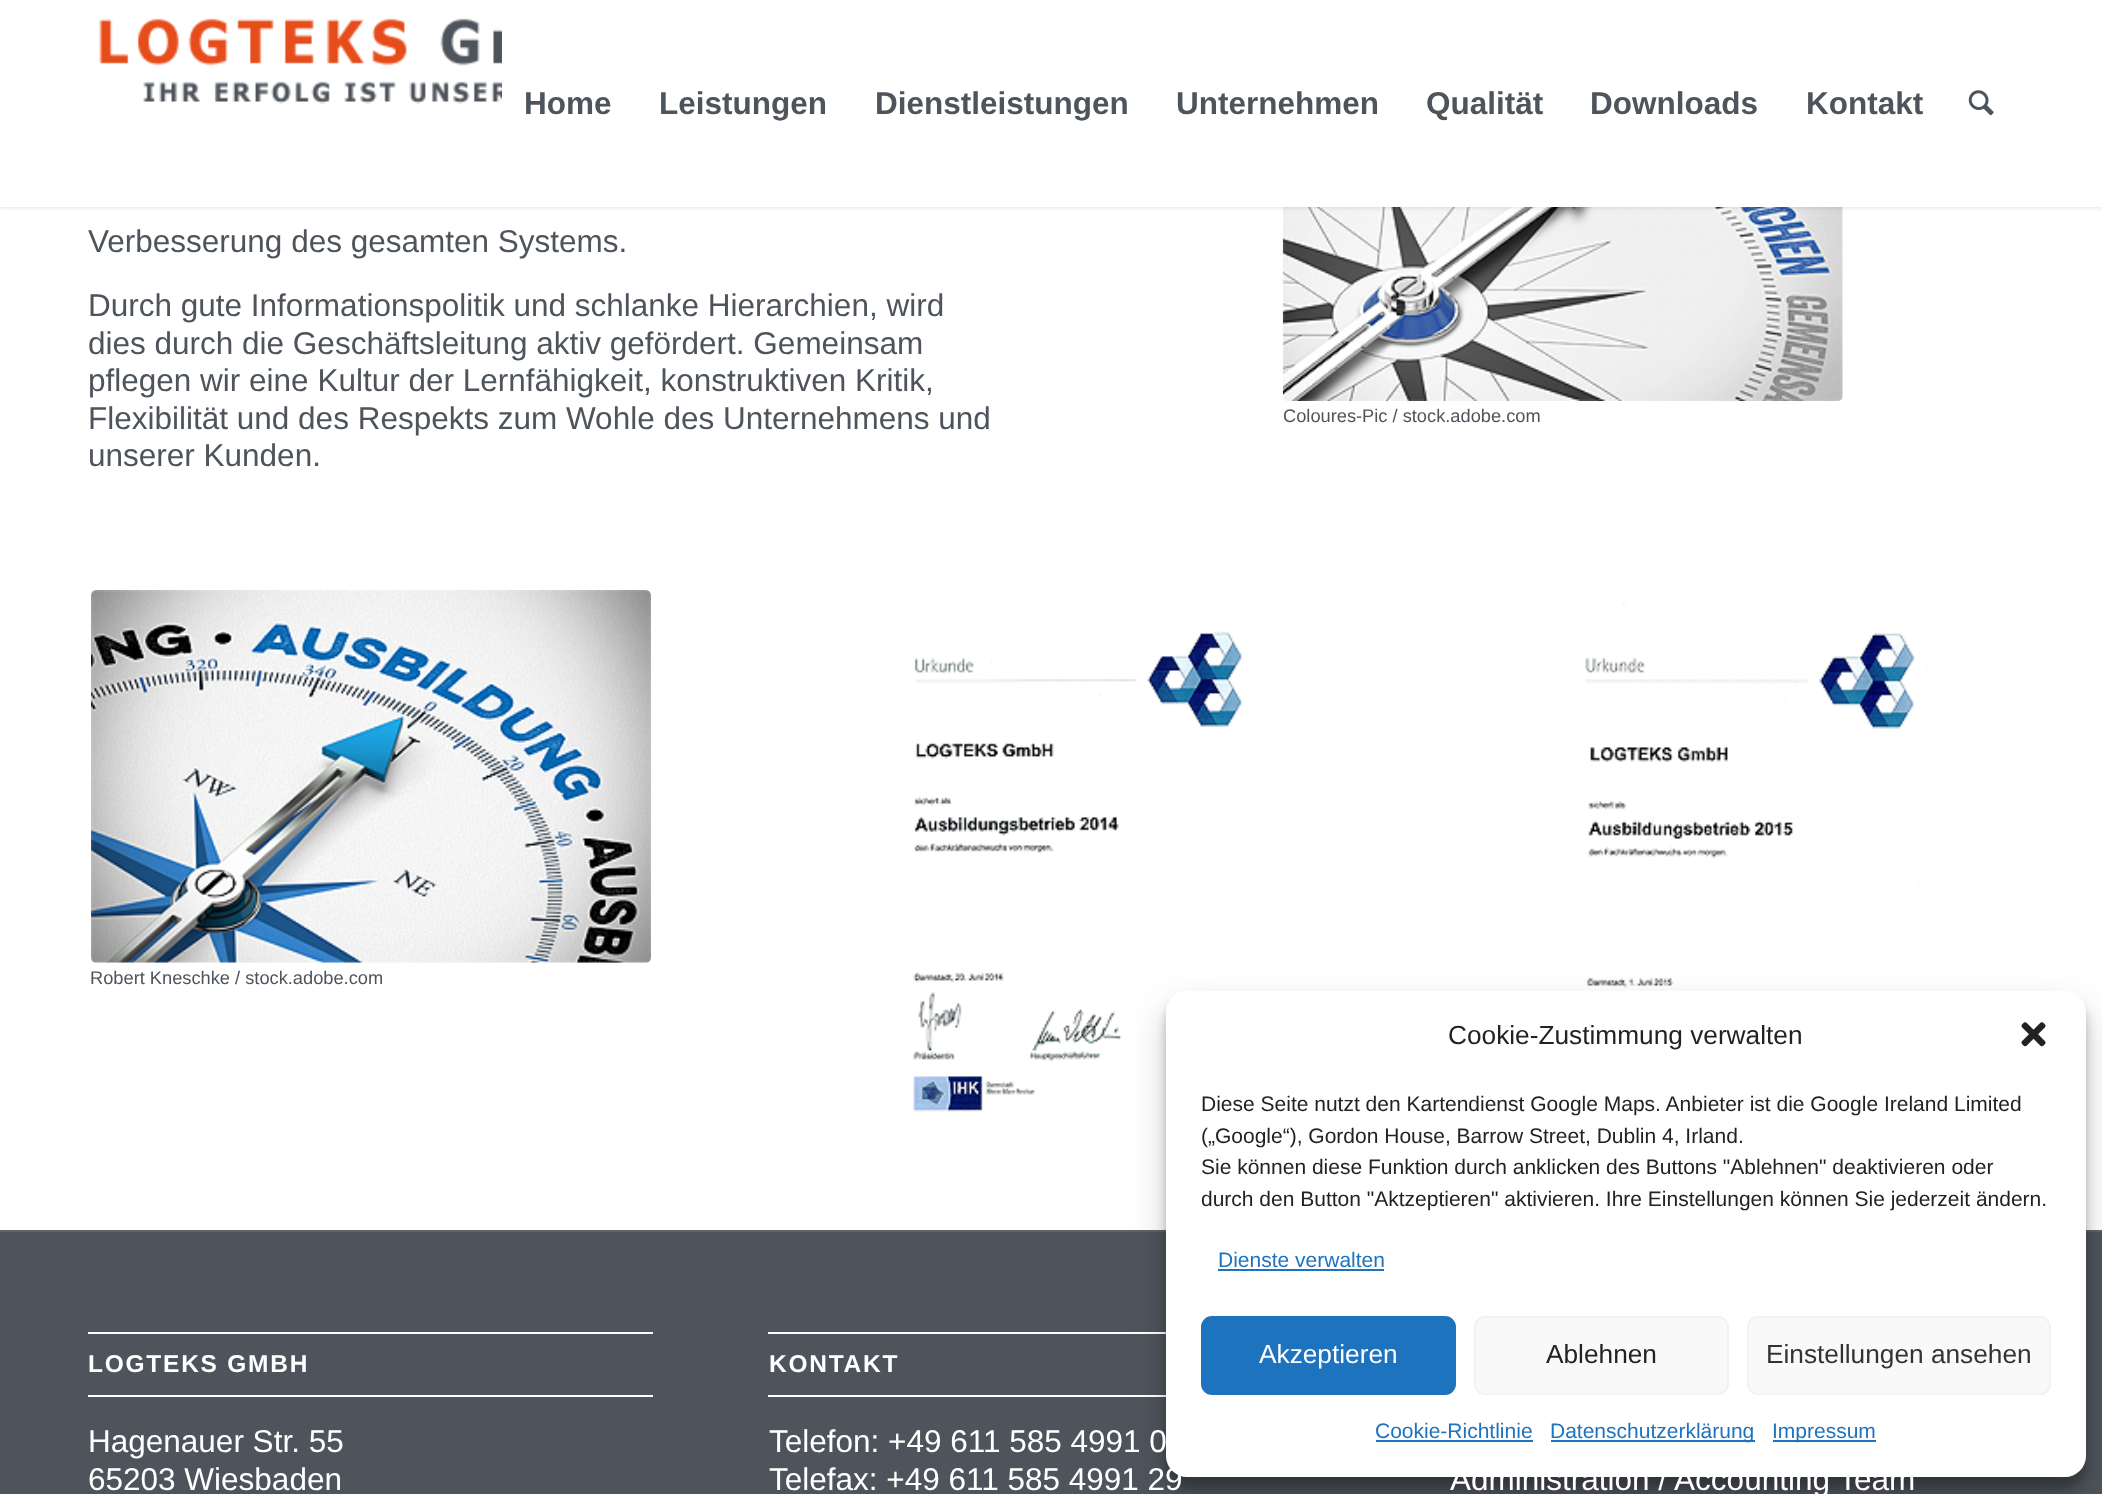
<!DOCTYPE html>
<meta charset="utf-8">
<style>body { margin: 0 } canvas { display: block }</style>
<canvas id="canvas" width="2102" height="1494"></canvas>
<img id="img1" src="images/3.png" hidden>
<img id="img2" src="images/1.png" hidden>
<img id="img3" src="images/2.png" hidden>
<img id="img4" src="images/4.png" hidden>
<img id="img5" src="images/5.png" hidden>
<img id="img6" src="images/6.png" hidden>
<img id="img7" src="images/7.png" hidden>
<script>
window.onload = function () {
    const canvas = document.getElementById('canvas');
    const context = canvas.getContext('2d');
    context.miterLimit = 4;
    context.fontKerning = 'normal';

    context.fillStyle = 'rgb(255, 255, 255)';
    context.fillRect(0, 0, 2102, 1494);
    context.drawImage(document.getElementById('img1'), 1282, 207, 561, 194);
    context.fillStyle = 'rgba(0, 0, 0, 0.1)';
    context.filter = 'blur(2px)';
    context.beginPath();
    context.rect(-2, -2, 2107, 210);
    context.fill();
    context.filter = 'none';
    context.fillStyle = 'rgb(255, 255, 255)';
    context.fillRect(0, 0, 2102, 207);
    context.drawImage(document.getElementById('img2'), 99, 18, 403, 86);
    context.drawImage(document.getElementById('img3'), 1968, 90, 26, 26);
    context.drawImage(document.getElementById('img4'), 91, 590, 560, 373);
    context.drawImage(document.getElementById('img5'), 913, 631, 330, 481);
    context.drawImage(document.getElementById('img6'), 1554, 595, 374, 396);
    context.fillStyle = 'rgb(78, 84, 91)';
    context.fillRect(0, 1232, 2102, 262);
    context.fillStyle = 'rgb(91, 100, 107)';
    context.fillRect(0, 1230, 2102, 2);
    context.fillStyle = 'rgb(255, 255, 255)';
    context.fillRect(88, 1332, 565, 2);
    context.fillRect(88, 1395, 565, 2);
    context.fillRect(768, 1332, 398, 2);
    context.fillRect(768, 1395, 398, 2);
    context.fillStyle = 'rgba(0, 0, 0, 0.23)';
    context.filter = 'blur(5px)';
    context.beginPath();
    context.roundRect(1166, 1001, 920, 487, 21);
    context.fill();
    context.filter = 'none';
    context.fillStyle = 'rgba(0, 0, 0, 0.19)';
    context.filter = 'blur(17.5px)';
    context.beginPath();
    context.roundRect(1166, 1008, 920, 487, 21);
    context.fill();
    context.filter = 'none';
    context.fillStyle = 'rgb(255, 255, 255)';
    context.beginPath();
    context.roundRect(1166, 991, 920, 486, 21);
    context.fill();
    context.drawImage(document.getElementById('img7'), 2021, 1022, 25, 25);
    context.fillStyle = 'rgb(30, 115, 190)';
    context.fillRect(1218, 1269, 166, 2);
    context.beginPath();
    context.roundRect(1202, 1317, 253, 77, 10);
    context.fill();
    context.strokeStyle = 'rgb(30, 115, 190)';
    context.lineWidth = 2;
    context.stroke();
    context.fillStyle = 'rgb(249, 249, 249)';
    context.beginPath();
    context.roundRect(1475, 1317, 253, 77, 10);
    context.fill();
    context.strokeStyle = 'rgb(242, 242, 242)';
    context.stroke();
    context.beginPath();
    context.roundRect(1748, 1317, 302, 77, 10);
    context.fill();
    context.stroke();
    context.fillStyle = 'rgb(30, 115, 190)';
    context.fillRect(1376, 1440, 157, 2);
    context.fillRect(1551, 1440, 204, 2);
    context.fillRect(1773, 1440, 103, 2);
    context.font = 'bold 31.5px Liberation Sans';
    context.fillStyle = 'rgb(78, 84, 91)';
    context.fillText('Home', 524, 114);
    context.fillText('Leistungen', 659, 114);
    context.fillText('Dienstleistungen', 875, 114);
    context.fillText('Unternehmen', 1176, 114);
    context.fillText('Qualität', 1426, 114);
    context.fillText('Downloads', 1590, 114);
    context.fillText('Kontakt', 1806, 114);
    context.font = '31.5px Liberation Sans';
    context.fillText('Verbesserung des gesamten Systems.', 88, 252);
    context.fillText('Durch gute Informationspolitik und schlanke Hierarchien, wird', 88, 316);
    context.fillText('dies durch die Geschäftsleitung aktiv gefördert. Gemeinsam', 88, 354);
    context.fillText('pflegen wir eine Kultur der Lernfähigkeit, konstruktiven Kritik,', 88, 391);
    context.fillText('Flexibilität und des Respekts zum Wohle des Unternehmens und', 88, 429);
    context.fillText('unserer Kunden.', 88, 466);
    context.font = '18.25px Liberation Sans';
    context.fillText('Coloures-Pic / stock.adobe.com', 1283, 422);
    context.fillText('Robert Kneschke / stock.adobe.com', 90, 984);
    context.letterSpacing = '1.75px';
    context.font = 'bold 24.5px Liberation Sans';
    context.fillStyle = 'rgb(255, 255, 255)';
    context.fillText('LOGTEKS GMBH', 88, 1372);
    context.letterSpacing = '0px';
    context.font = '31.5px Liberation Sans';
    context.fillText('Hagenauer Str. 55', 88, 1452);
    context.fillText('65203 Wiesbaden', 88, 1490);
    context.letterSpacing = '1.75px';
    context.font = 'bold 24.5px Liberation Sans';
    context.fillText('KONTAKT', 769, 1372);
    context.letterSpacing = '0px';
    context.font = '31.5px Liberation Sans';
    context.fillText('Telefon: +49 611 585 4991 0', 769, 1452);
    context.fillText('Telefax: +49 611 585 4991 29', 769, 1490);
    context.fillText('Administration / Accounting Team', 1450, 1490);
    context.font = '26.25px Liberation Sans';
    context.fillStyle = 'rgb(34, 34, 34)';
    context.fillText('Cookie-Zustimmung verwalten', 1448, 1044);
    context.font = '21px Liberation Sans';
    context.fillText('Diese Seite nutzt den Kartendienst Google Maps. Anbieter ist die Google Ireland Limited', 1201, 1111);
    context.fillText('(„Google“), Gordon House, Barrow Street, Dublin 4, Irland.', 1201, 1143);
    context.fillText('Sie können diese Funktion durch anklicken des Buttons "Ablehnen" deaktivieren oder', 1201, 1174);
    context.fillText('durch den Button "Aktzeptieren" aktivieren. Ihre Einstellungen können Sie jederzeit ändern.', 1201, 1206);
    context.fillStyle = 'rgb(30, 115, 190)';
    context.fillText('Dienste verwalten', 1218, 1267);
    context.font = '26.25px Liberation Sans';
    context.fillStyle = 'rgb(255, 255, 255)';
    context.fillText('Akzeptieren', 1259, 1363);
    context.fillStyle = 'rgb(34, 34, 34)';
    context.fillText('Ablehnen', 1546, 1363);
    context.fillStyle = 'rgb(51, 51, 51)';
    context.fillText('Einstellungen ansehen', 1766, 1363);
    context.font = '21px Liberation Sans';
    context.fillStyle = 'rgb(30, 115, 190)';
    context.fillText('Cookie-Richtlinie', 1375, 1438);
    context.fillText('Datenschutzerklärung', 1550, 1438);
    context.fillText('Impressum', 1772, 1438);
};
</script>
